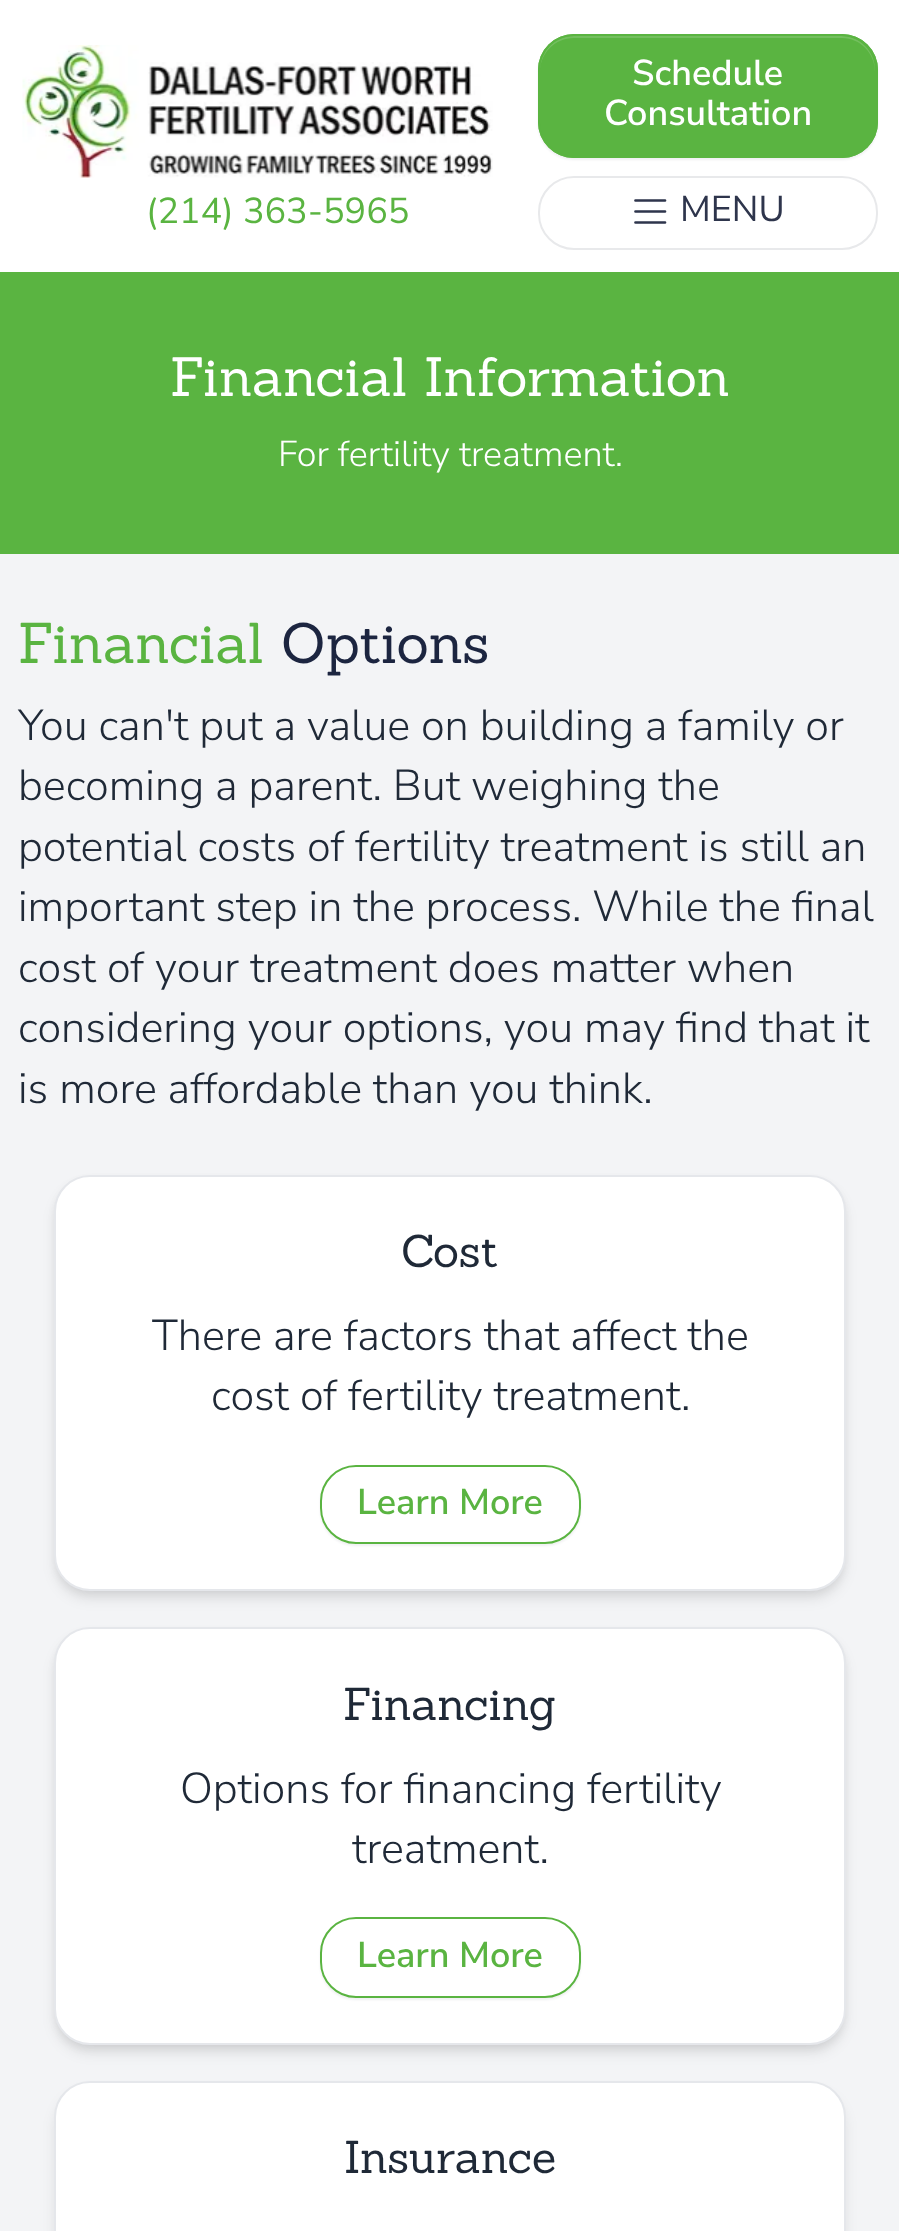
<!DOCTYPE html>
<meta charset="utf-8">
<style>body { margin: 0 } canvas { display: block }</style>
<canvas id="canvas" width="899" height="2231"></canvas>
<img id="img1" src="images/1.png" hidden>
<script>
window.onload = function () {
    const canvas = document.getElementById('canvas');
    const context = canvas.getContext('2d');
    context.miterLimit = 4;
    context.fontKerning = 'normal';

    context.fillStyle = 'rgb(243, 244, 246)';
    context.fillRect(0, 0, 899, 2231);
    context.fillStyle = 'rgb(255, 255, 255)';
    context.fillRect(0, 0, 899, 272);
    context.drawImage(document.getElementById('img1'), 22, 45, 471, 133);
    context.fillStyle = 'rgba(23, 31, 56, 0.07)';
    context.filter = 'blur(1px)';
    context.beginPath();
    context.roundRect(538, 36, 340, 124, 36);
    context.fill();
    context.filter = 'none';
    context.fillStyle = 'rgb(90, 180, 65)';
    context.beginPath();
    context.roundRect(538, 34, 340, 124, 36);
    context.fill();
    context.fillStyle = 'rgb(115, 191, 94)';
    context.beginPath();
    context.moveTo(574, 38);
    context.lineTo(842, 38);
    context.bezierCurveTo(860, 38, 875, 53, 875, 72);
    context.lineTo(875, 70);
    context.bezierCurveTo(875, 51, 860, 36, 841, 36);
    context.lineTo(574, 36);
    context.bezierCurveTo(555, 36, 540, 51, 540, 70);
    context.lineTo(540, 72);
    context.bezierCurveTo(540, 53, 555, 38, 574, 38);
    context.closePath();
    context.fill();
    context.beginPath();
    context.roundRect(539, 35, 338, 122, 35);
    context.strokeStyle = 'rgb(90, 180, 65)';
    context.lineWidth = 2;
    context.stroke();
    context.beginPath();
    context.roundRect(539, 177, 338, 72, 35);
    context.strokeStyle = 'rgb(232, 233, 235)';
    context.stroke();
    context.beginPath();
    context.moveTo(635.5, 200.5);
    context.lineTo(665, 200.5);
    context.moveTo(635.5, 211.5);
    context.lineTo(665, 211.5);
    context.moveTo(635.5, 222.5);
    context.lineTo(665, 222.5);
    context.strokeStyle = 'rgb(46, 53, 76)';
    context.lineWidth = 2.7;
    context.lineCap = 'round';
    context.stroke();
    context.fillStyle = 'rgb(90, 180, 65)';
    context.fillRect(0, 272, 899, 282);
    context.fillStyle = 'rgba(0, 0, 0, 0.06)';
    context.filter = 'blur(4.5px)';
    context.beginPath();
    context.roundRect(56, 1181, 788, 412, 34);
    context.fill();
    context.filter = 'none';
    context.fillStyle = 'rgba(0, 0, 0, 0.1)';
    context.filter = 'blur(7px)';
    context.beginPath();
    context.roundRect(56, 1186, 788, 412, 34);
    context.fill();
    context.filter = 'none';
    context.fillStyle = 'rgb(255, 255, 255)';
    context.beginPath();
    context.roundRect(55, 1176, 790, 414, 35);
    context.fill();
    context.strokeStyle = 'rgb(229, 231, 235)';
    context.lineWidth = 2;
    context.stroke();
    context.save();
    context.beginPath();
    context.moveTo(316, 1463);
    context.lineTo(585, 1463);
    context.lineTo(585, 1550);
    context.lineTo(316, 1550);
    context.closePath();
    context.moveTo(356, 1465);
    context.lineTo(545, 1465);
    context.bezierCurveTo(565, 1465, 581, 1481, 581, 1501);
    context.lineTo(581, 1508);
    context.bezierCurveTo(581, 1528, 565, 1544, 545, 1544);
    context.lineTo(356, 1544);
    context.bezierCurveTo(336, 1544, 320, 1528, 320, 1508);
    context.lineTo(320, 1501);
    context.bezierCurveTo(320, 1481, 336, 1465, 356, 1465);
    context.closePath();
    context.clip('evenodd');
    context.fillStyle = 'rgba(23, 31, 56, 0.07)';
    context.filter = 'blur(1px)';
    context.beginPath();
    context.roundRect(320, 1467, 261, 79, 36);
    context.fill();
    context.filter = 'none';
    context.restore();
    context.beginPath();
    context.roundRect(321, 1466, 259, 77, 35);
    context.strokeStyle = 'rgb(90, 180, 65)';
    context.stroke();
    context.fillStyle = 'rgba(0, 0, 0, 0.06)';
    context.filter = 'blur(4.5px)';
    context.beginPath();
    context.roundRect(56, 1634, 788, 414, 34);
    context.fill();
    context.filter = 'none';
    context.fillStyle = 'rgba(0, 0, 0, 0.1)';
    context.filter = 'blur(7px)';
    context.beginPath();
    context.roundRect(56, 1638, 788, 414, 34);
    context.fill();
    context.filter = 'none';
    context.fillStyle = 'rgb(255, 255, 255)';
    context.beginPath();
    context.roundRect(55, 1628, 790, 416, 35);
    context.fill();
    context.strokeStyle = 'rgb(229, 231, 235)';
    context.stroke();
    context.save();
    context.beginPath();
    context.moveTo(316, 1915);
    context.lineTo(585, 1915);
    context.lineTo(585, 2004);
    context.lineTo(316, 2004);
    context.closePath();
    context.moveTo(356, 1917);
    context.lineTo(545, 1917);
    context.bezierCurveTo(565, 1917, 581, 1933, 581, 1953);
    context.lineTo(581, 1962);
    context.bezierCurveTo(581, 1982, 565, 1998, 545, 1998);
    context.lineTo(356, 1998);
    context.bezierCurveTo(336, 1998, 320, 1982, 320, 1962);
    context.lineTo(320, 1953);
    context.bezierCurveTo(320, 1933, 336, 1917, 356, 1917);
    context.closePath();
    context.clip('evenodd');
    context.fillStyle = 'rgba(23, 31, 56, 0.07)';
    context.filter = 'blur(1px)';
    context.beginPath();
    context.roundRect(320, 1919, 261, 81, 36);
    context.fill();
    context.filter = 'none';
    context.restore();
    context.beginPath();
    context.roundRect(321, 1918, 259, 79, 35);
    context.strokeStyle = 'rgb(90, 180, 65)';
    context.stroke();
    context.fillStyle = 'rgba(0, 0, 0, 0.1)';
    context.filter = 'blur(7px)';
    context.beginPath();
    context.roundRect(56, 2093, 788, 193, 34);
    context.fill();
    context.filter = 'none';
    context.fillStyle = 'rgb(255, 255, 255)';
    context.beginPath();
    context.roundRect(55, 2082, 790, 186, 35);
    context.fill();
    context.strokeStyle = 'rgb(229, 231, 235)';
    context.stroke();
    context.font = '36px Nunito Sans';
    context.fillStyle = 'rgb(90, 180, 65)';
    context.fillText('(214) 363-5965', 146, 223);
    context.font = '600 36px Nunito Sans';
    context.fillStyle = 'rgb(255, 255, 255)';
    context.fillText('Schedule', 632, 85);
    context.fillText('Consultation', 604, 125);
    context.font = '36px Nunito Sans';
    context.fillStyle = 'rgb(46, 53, 76)';
    context.fillText('MENU', 680, 221);
    context.font = '54px Sanchez';
    context.fillStyle = 'rgb(255, 255, 255)';
    context.fillText('Financial Information', 170, 396);
    context.font = '300 36px Nunito Sans';
    context.fillText('For fertility treatment.', 278, 466);
    context.font = '56px Sanchez';
    context.fillStyle = 'rgb(90, 180, 65)';
    context.fillText('Financial', 18, 663);
    context.fillStyle = 'rgb(28, 37, 64)';
    context.fillText('Options', 281, 663);
    context.font = '300 43.25px Nunito Sans';
    context.fillStyle = 'rgb(31, 41, 55)';
    context.fillText('You can\'t put a value on building a family or', 18, 740);
    context.fillText('becoming a parent. But weighing the', 18, 800);
    context.fillText('potential costs of fertility treatment is still an', 18, 861);
    context.fillText('important step in the process. While the final', 18, 921);
    context.fillText('cost of your treatment does matter when', 18, 982);
    context.fillText('considering your options, you may find that it', 18, 1042);
    context.fillText('is more affordable than you think.', 18, 1103);
    context.font = '45px Sanchez';
    context.fillText('Cost', 401, 1267);
    context.font = '300 43.25px Nunito Sans';
    context.fillText('There are factors that affect the', 152, 1350);
    context.fillText('cost of fertility treatment.', 211, 1410);
    context.font = '600 36px Nunito Sans';
    context.fillStyle = 'rgb(90, 180, 65)';
    context.fillText('Learn More', 357, 1514);
    context.font = '45px Sanchez';
    context.fillStyle = 'rgb(31, 41, 55)';
    context.fillText('Financing', 343, 1720);
    context.font = '300 43.25px Nunito Sans';
    context.fillText('Options for financing fertility', 180, 1803);
    context.fillText('treatment.', 352, 1863);
    context.font = '600 36px Nunito Sans';
    context.fillStyle = 'rgb(90, 180, 65)';
    context.fillText('Learn More', 357, 1967);
    context.font = '45px Sanchez';
    context.fillStyle = 'rgb(31, 41, 55)';
    context.fillText('Insurance', 344, 2173);
};
</script>
